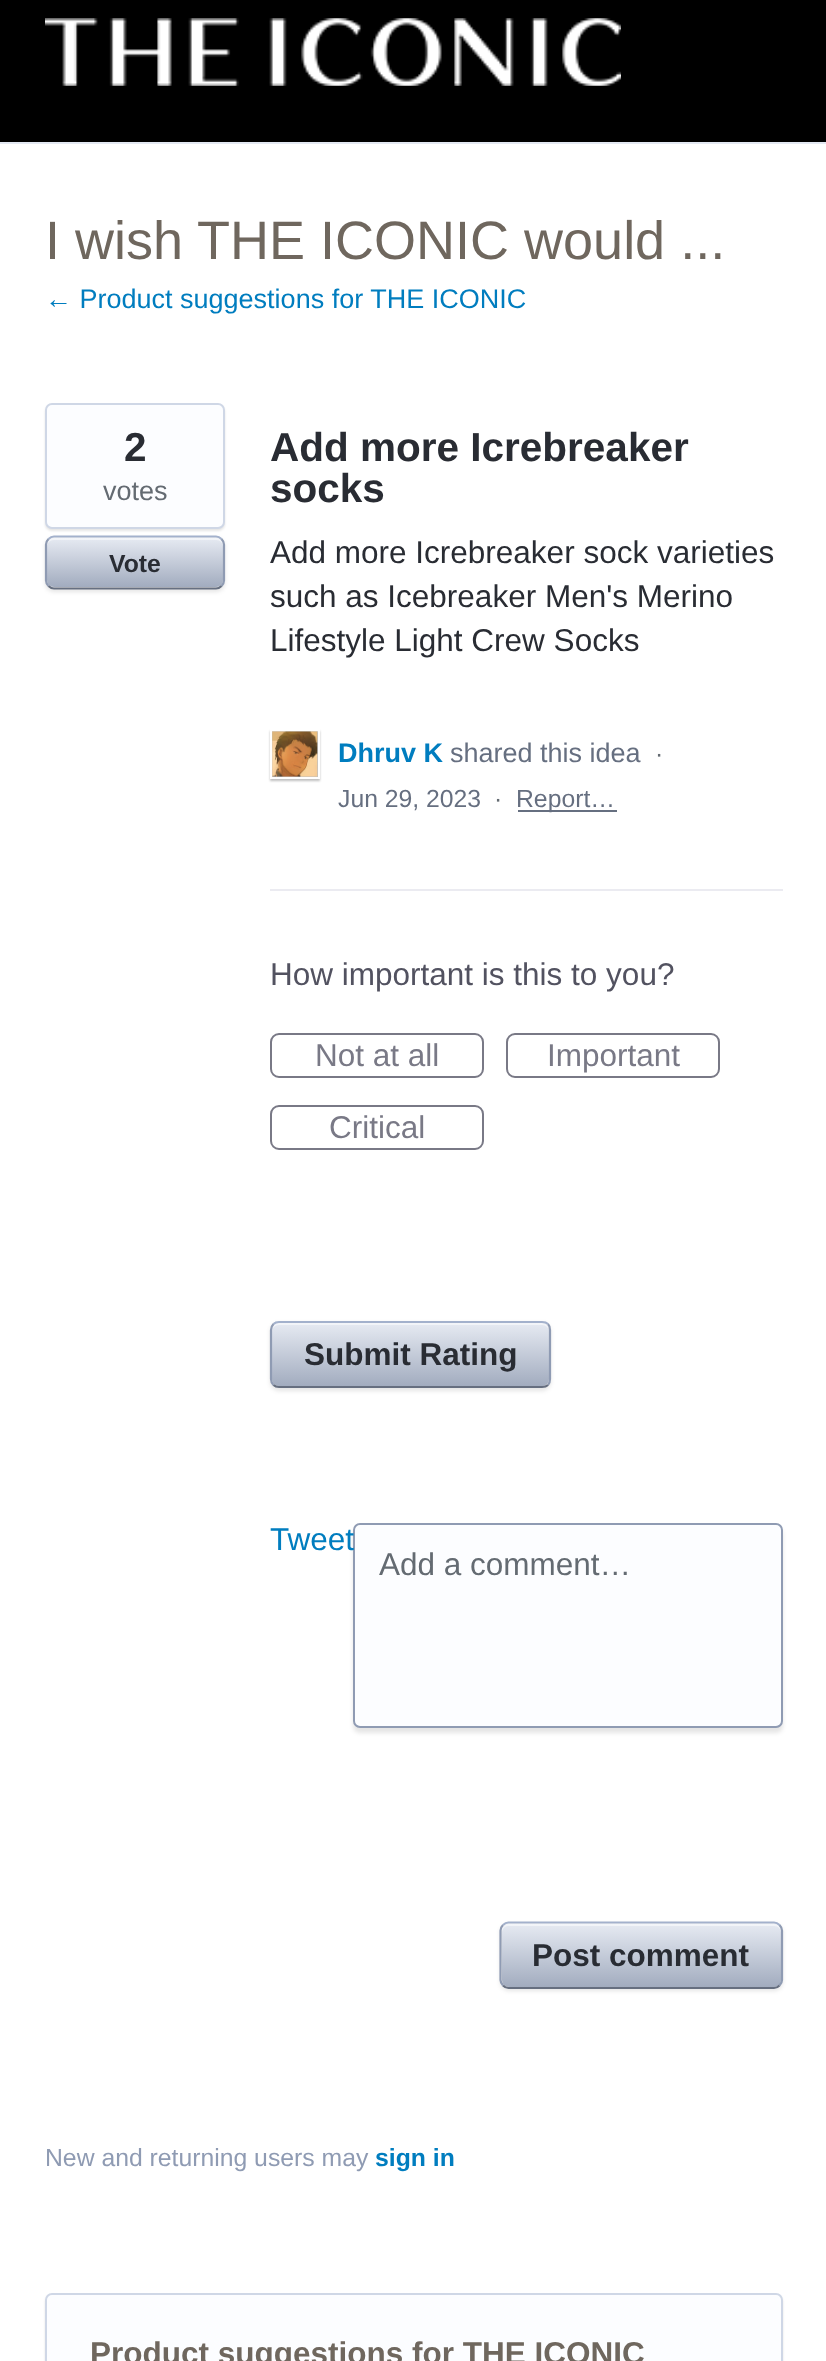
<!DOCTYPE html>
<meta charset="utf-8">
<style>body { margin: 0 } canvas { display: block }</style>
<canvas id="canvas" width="826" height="2361"></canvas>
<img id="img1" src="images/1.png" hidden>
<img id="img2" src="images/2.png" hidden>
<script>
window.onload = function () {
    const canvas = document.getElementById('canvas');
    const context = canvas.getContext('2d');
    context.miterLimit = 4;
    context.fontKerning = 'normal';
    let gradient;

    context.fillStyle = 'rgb(255, 255, 255)';
    context.fillRect(0, 0, 826, 2361);
    context.fillStyle = 'rgb(0, 0, 0)';
    context.fillRect(0, 0, 826, 142);
    context.drawImage(document.getElementById('img1'), 45, 18, 576, 68);
    context.fillStyle = 'rgb(227, 232, 242)';
    context.fillRect(0, 142, 826, 2);
    context.fillStyle = 'rgba(0, 0, 0, 0.1)';
    context.filter = 'blur(1px)';
    context.beginPath();
    context.roundRect(45, 405, 180, 126, 7);
    context.fill();
    context.filter = 'none';
    context.fillStyle = 'rgb(252, 253, 255)';
    context.beginPath();
    context.roundRect(46, 404, 178, 124, 6);
    context.fill();
    context.strokeStyle = 'rgb(207, 215, 230)';
    context.lineWidth = 2;
    context.stroke();
    context.fillStyle = 'rgba(0, 0, 0, 0.1)';
    context.filter = 'blur(2px)';
    context.beginPath();
    context.roundRect(45, 538, 180, 54, 9);
    context.fill();
    context.filter = 'none';
    gradient = context.createLinearGradient(47, 538, 47, 587);
    gradient.addColorStop(0, 'rgb(230, 234, 242)');
    gradient.addColorStop(1, 'rgb(162, 172, 191)');
    context.fillStyle = gradient;
    context.beginPath();
    context.roundRect(47, 538, 176, 49, 7);
    context.fill();
    context.fillStyle = 'rgba(255, 255, 255, 0.5)';
    context.beginPath();
    context.moveTo(54, 540);
    context.lineTo(216, 540);
    context.bezierCurveTo(220, 540, 223, 543, 223, 547);
    context.lineTo(223, 545);
    context.bezierCurveTo(223, 541, 220, 538, 216, 538);
    context.lineTo(54, 538);
    context.bezierCurveTo(50, 538, 47, 541, 47, 545);
    context.lineTo(47, 547);
    context.bezierCurveTo(47, 543, 50, 540, 54, 540);
    context.closePath();
    context.fill();
    context.beginPath();
    context.moveTo(48.5, 539);
    context.bezierCurveTo(50, 537.5, 52, 536.5, 54, 536.5);
    context.lineTo(216, 536.5);
    context.bezierCurveTo(218, 536.5, 220, 537.5, 221.5, 539);
    context.strokeStyle = 'rgb(163, 177, 204)';
    context.lineWidth = 2.2;
    context.stroke();
    context.beginPath();
    context.moveTo(221.5, 539);
    context.bezierCurveTo(223, 540.5, 224, 542.5, 224, 544.5);
    context.lineTo(224, 580.5);
    context.bezierCurveTo(224, 582.5, 223, 584.5, 221.5, 586);
    context.strokeStyle = 'rgb(143, 155, 179)';
    context.stroke();
    context.beginPath();
    context.moveTo(221.5, 586);
    context.bezierCurveTo(220, 587.5, 218, 588.5, 216, 588.5);
    context.lineTo(54, 588.5);
    context.bezierCurveTo(52, 588.5, 50, 587.5, 48.5, 586);
    context.strokeStyle = 'rgb(102, 111, 128)';
    context.stroke();
    context.beginPath();
    context.moveTo(48.5, 586);
    context.bezierCurveTo(47, 584.5, 46, 582.5, 46, 580.5);
    context.lineTo(46, 544.5);
    context.bezierCurveTo(46, 542.5, 47, 540.5, 48.5, 539);
    context.strokeStyle = 'rgb(143, 155, 179)';
    context.stroke();
    context.fillStyle = 'rgba(0, 0, 0, 0.25)';
    context.filter = 'blur(1px)';
    context.beginPath();
    context.rect(270, 731, 50, 50);
    context.fill();
    context.filter = 'none';
    context.strokeStyle = 'rgb(255, 255, 255)';
    context.lineWidth = 2;
    context.strokeRect(271, 730, 48, 48);
    context.drawImage(document.getElementById('img2'), 272, 731, 46, 46);
    context.fillStyle = 'rgb(102, 111, 128)';
    context.fillRect(518, 810, 99, 2);
    context.fillStyle = 'rgb(235, 235, 241)';
    context.fillRect(270, 889, 513, 2);
    context.beginPath();
    context.roundRect(271, 1034, 212, 43, 8);
    context.strokeStyle = 'rgb(121, 121, 134)';
    context.stroke();
    context.beginPath();
    context.roundRect(507, 1034, 212, 43, 8);
    context.stroke();
    context.beginPath();
    context.roundRect(271, 1106, 212, 43, 8);
    context.stroke();
    context.fillStyle = 'rgba(0, 0, 0, 0.1)';
    context.filter = 'blur(2px)';
    context.beginPath();
    context.roundRect(270, 1323, 281, 68, 9);
    context.fill();
    context.filter = 'none';
    gradient = context.createLinearGradient(272, 1323, 272, 1386);
    gradient.addColorStop(0, 'rgb(230, 234, 242)');
    gradient.addColorStop(1, 'rgb(162, 172, 191)');
    context.fillStyle = gradient;
    context.beginPath();
    context.roundRect(272, 1323, 277, 63, 7);
    context.fill();
    context.fillStyle = 'rgba(255, 255, 255, 0.5)';
    context.beginPath();
    context.moveTo(279, 1325);
    context.lineTo(542, 1325);
    context.bezierCurveTo(546, 1325, 549, 1328, 549, 1332);
    context.bezierCurveTo(549, 1328, 547, 1323, 542, 1323);
    context.lineTo(278, 1323);
    context.bezierCurveTo(273, 1324, 272, 1328, 272, 1332);
    context.bezierCurveTo(272, 1328, 275, 1325, 279, 1325);
    context.closePath();
    context.fill();
    context.beginPath();
    context.moveTo(273.5, 1324);
    context.bezierCurveTo(275, 1322.5, 277, 1322, 279, 1322);
    context.lineTo(542, 1322);
    context.bezierCurveTo(544.5, 1322, 546.5, 1322.5, 548, 1324);
    context.strokeStyle = 'rgb(163, 177, 204)';
    context.lineWidth = 2.2;
    context.stroke();
    context.beginPath();
    context.moveTo(548, 1324);
    context.bezierCurveTo(549.5, 1325.5, 550, 1327.5, 550, 1330);
    context.lineTo(550, 1379);
    context.bezierCurveTo(550, 1381.5, 549.5, 1383.5, 548, 1385);
    context.strokeStyle = 'rgb(143, 155, 179)';
    context.stroke();
    context.beginPath();
    context.moveTo(548, 1385);
    context.bezierCurveTo(546.5, 1386.5, 544.5, 1387, 542, 1387);
    context.lineTo(279, 1387);
    context.bezierCurveTo(277, 1387, 275, 1386.5, 273.5, 1385);
    context.strokeStyle = 'rgb(102, 111, 128)';
    context.stroke();
    context.beginPath();
    context.moveTo(273.5, 1385);
    context.bezierCurveTo(272, 1383.5, 271, 1381.5, 271, 1379);
    context.lineTo(271, 1330);
    context.bezierCurveTo(271, 1327.5, 272, 1325.5, 273.5, 1324);
    context.strokeStyle = 'rgb(143, 155, 179)';
    context.stroke();
    context.fillStyle = 'rgba(0, 0, 0, 0.1)';
    context.filter = 'blur(2px)';
    context.beginPath();
    context.roundRect(353, 1528, 430, 205, 7);
    context.fill();
    context.filter = 'none';
    context.fillStyle = 'rgb(252, 253, 255)';
    context.beginPath();
    context.roundRect(354, 1524, 428, 203, 6);
    context.fill();
    context.lineWidth = 2;
    context.stroke();
    context.fillStyle = 'rgba(0, 0, 0, 0.1)';
    context.filter = 'blur(2px)';
    context.beginPath();
    context.roundRect(500, 1924, 283, 67, 9);
    context.fill();
    context.filter = 'none';
    gradient = context.createLinearGradient(502, 1924, 502, 1987);
    gradient.addColorStop(0, 'rgb(230, 234, 242)');
    gradient.addColorStop(1, 'rgb(162, 172, 191)');
    context.fillStyle = gradient;
    context.beginPath();
    context.roundRect(502, 1924, 279, 63, 7);
    context.fill();
    context.fillStyle = 'rgba(255, 255, 255, 0.5)';
    context.beginPath();
    context.moveTo(508, 1926);
    context.lineTo(774, 1926);
    context.bezierCurveTo(778, 1926, 781, 1929, 781, 1933);
    context.lineTo(781, 1931);
    context.bezierCurveTo(781, 1927, 778, 1924, 774, 1924);
    context.lineTo(509, 1924);
    context.bezierCurveTo(505, 1924, 502, 1927, 502, 1931);
    context.lineTo(502, 1933);
    context.bezierCurveTo(502, 1929, 505, 1926, 508, 1926);
    context.closePath();
    context.fill();
    context.beginPath();
    context.moveTo(503, 1925);
    context.bezierCurveTo(504.5, 1923.5, 506.5, 1922.5, 508.5, 1922.5);
    context.lineTo(774, 1922.5);
    context.bezierCurveTo(776, 1922.5, 778, 1923.5, 779.5, 1925);
    context.strokeStyle = 'rgb(163, 177, 204)';
    context.lineWidth = 2.2;
    context.stroke();
    context.beginPath();
    context.moveTo(779.5, 1925);
    context.bezierCurveTo(781, 1926.5, 782, 1928.5, 782, 1930.5);
    context.lineTo(782, 1980);
    context.bezierCurveTo(782, 1982, 781, 1984, 779.5, 1985.5);
    context.strokeStyle = 'rgb(143, 155, 179)';
    context.stroke();
    context.beginPath();
    context.moveTo(779.5, 1985.5);
    context.bezierCurveTo(778, 1987, 776, 1988, 774, 1988);
    context.lineTo(508.5, 1988);
    context.bezierCurveTo(506.5, 1988, 504.5, 1987, 503, 1985.5);
    context.strokeStyle = 'rgb(102, 111, 128)';
    context.stroke();
    context.beginPath();
    context.moveTo(503, 1985.5);
    context.bezierCurveTo(501.5, 1984, 500.5, 1982, 500.5, 1980);
    context.lineTo(500.5, 1930.5);
    context.bezierCurveTo(500.5, 1928.5, 501.5, 1926.5, 503, 1925);
    context.strokeStyle = 'rgb(143, 155, 179)';
    context.stroke();
    context.fillStyle = 'rgba(0, 0, 0, 0.1)';
    context.filter = 'blur(1px)';
    context.beginPath();
    context.roundRect(45, 2295, 738, 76, 7);
    context.fill();
    context.filter = 'none';
    context.fillStyle = 'rgb(252, 253, 255)';
    context.beginPath();
    context.roundRect(46, 2294, 736, 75, 6);
    context.fill();
    context.strokeStyle = 'rgb(207, 215, 230)';
    context.lineWidth = 2;
    context.stroke();
    context.font = '54px Liberation Sans';
    context.fillStyle = 'rgb(111, 103, 94)';
    context.fillText('I wish THE ICONIC would ...', 45, 259);
    context.font = '27px Liberation Sans';
    context.fillStyle = 'rgb(0, 125, 191)';
    context.fillText('← Product suggestions for THE ICONIC', 45, 308);
    context.font = 'bold 40.5px Liberation Sans';
    context.fillStyle = 'rgb(41, 44, 51)';
    context.fillText('2', 124, 461);
    context.font = '27px Liberation Sans';
    context.fillStyle = 'rgb(100, 107, 114)';
    context.fillText('votes', 103, 500);
    context.font = 'bold 24.75px Liberation Sans';
    context.fillStyle = 'rgb(41, 44, 51)';
    context.fillText('Vote', 109, 572);
    context.font = 'bold 40.5px Liberation Sans';
    context.fillText('Add more Icrebreaker', 270, 461);
    context.fillText('socks', 270, 502);
    context.font = '31.5px Liberation Sans';
    context.fillText('Add more Icrebreaker sock varieties', 270, 563);
    context.fillText('such as Icebreaker Men\'s Merino', 270, 607);
    context.fillText('Lifestyle Light Crew Socks', 270, 651);
    context.font = 'bold 27px Liberation Sans';
    context.fillStyle = 'rgb(0, 125, 191)';
    context.fillText('Dhruv K', 338, 762);
    context.font = '27px Liberation Sans';
    context.fillStyle = 'rgb(102, 111, 128)';
    context.fillText('shared this idea', 450, 762);
    context.font = '24.75px Liberation Sans';
    context.fillStyle = 'rgb(100, 107, 114)';
    context.fillText('·', 655, 762);
    context.fillStyle = 'rgb(102, 111, 128)';
    context.fillText('Jun 29, 2023', 338, 807);
    context.fillStyle = 'rgb(100, 107, 114)';
    context.fillText('·', 494, 807);
    context.fillStyle = 'rgb(102, 111, 128)';
    context.fillText('Report…', 516, 807);
    context.font = '31.5px Liberation Sans';
    context.fillStyle = 'rgb(82, 82, 96)';
    context.fillText('How important is this to you?', 270, 985);
    context.fillStyle = 'rgb(121, 121, 134)';
    context.fillText('Not at all', 315, 1066);
    context.fillText('Important', 547, 1066);
    context.fillText('Critical', 329, 1138);
    context.font = 'bold 31.5px Liberation Sans';
    context.fillStyle = 'rgb(41, 44, 51)';
    context.fillText('Submit Rating', 304, 1365);
    context.font = '31.5px Liberation Sans';
    context.fillStyle = 'rgb(0, 125, 191)';
    context.fillText('Tweet', 270, 1550);
    context.fillStyle = 'rgb(100, 107, 114)';
    context.fillText('Add a comment…', 379, 1575);
    context.font = 'bold 31.5px Liberation Sans';
    context.fillStyle = 'rgb(41, 44, 51)';
    context.fillText('Post comment', 532, 1966);
    context.font = '24.75px Liberation Sans';
    context.fillStyle = 'rgb(143, 155, 179)';
    context.fillText('New and returning users may', 45, 2166);
    context.font = 'bold 24.75px Liberation Sans';
    context.fillStyle = 'rgb(0, 125, 191)';
    context.fillText('sign in', 375, 2166);
    context.font = 'bold 31.5px Liberation Sans';
    context.fillStyle = 'rgb(111, 103, 94)';
    context.fillText('Product suggestions for THE ICONIC', 90, 2364);
};
</script>
